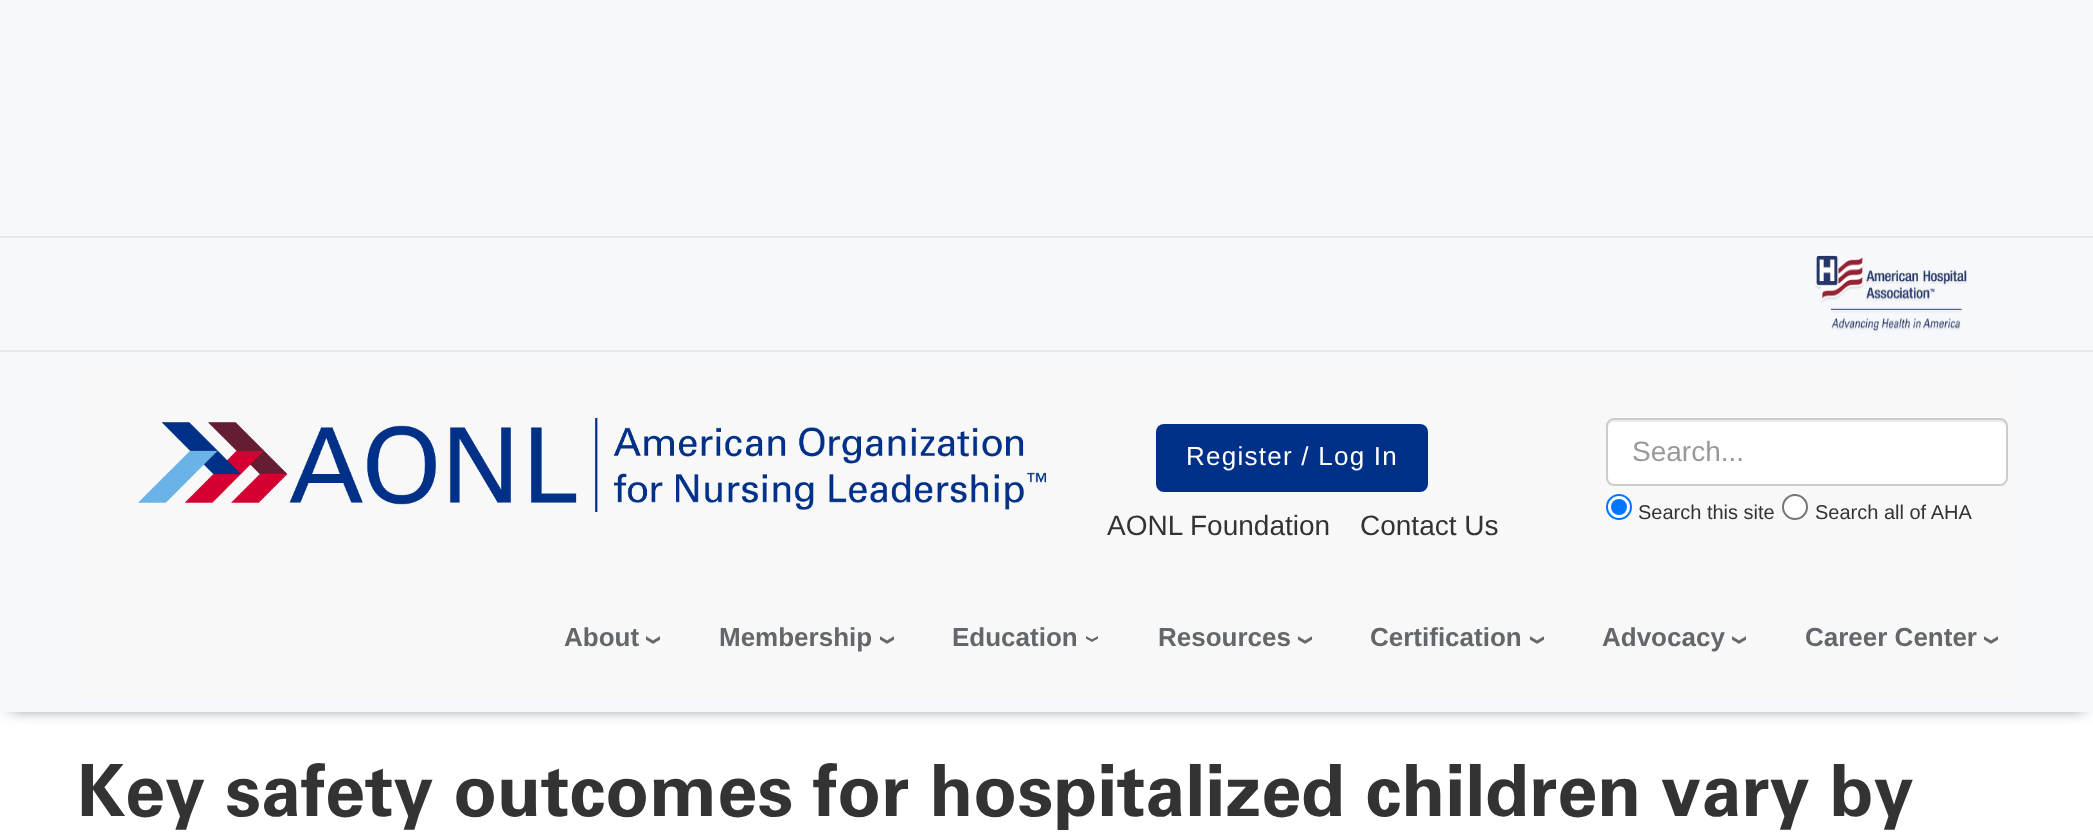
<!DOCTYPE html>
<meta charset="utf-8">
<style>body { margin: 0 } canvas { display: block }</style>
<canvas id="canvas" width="2093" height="833"></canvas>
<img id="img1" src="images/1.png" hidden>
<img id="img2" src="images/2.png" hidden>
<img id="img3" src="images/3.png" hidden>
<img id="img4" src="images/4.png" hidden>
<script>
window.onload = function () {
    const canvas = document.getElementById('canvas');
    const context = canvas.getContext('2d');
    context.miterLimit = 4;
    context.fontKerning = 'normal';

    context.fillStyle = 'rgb(255, 255, 255)';
    context.fillRect(0, 0, 2093, 833);
    context.fillStyle = 'rgba(0, 0, 0, 0.6)';
    context.filter = 'blur(8px)';
    context.beginPath();
    context.rect(10, 16, 2074, 692);
    context.fill();
    context.filter = 'none';
    context.fillStyle = 'rgb(247, 248, 251)';
    context.fillRect(0, 0, 2093, 712);
    context.fillStyle = 'rgb(231, 231, 231)';
    context.fillRect(0, 236, 2093, 2);
    context.fillRect(0, 350, 2093, 2);
    context.drawImage(document.getElementById('img1'), 1815, 254, 152, 79);
    context.fillStyle = 'rgb(248, 248, 248)';
    context.fillRect(78, 362, 1940, 338);
    context.drawImage(document.getElementById('img2'), 138, 418, 908, 94);
    context.fillStyle = 'rgb(0, 48, 135)';
    context.beginPath();
    context.roundRect(1156, 424, 272, 68, 8);
    context.fill();
    context.fillStyle = 'rgb(255, 255, 255)';
    context.beginPath();
    context.roundRect(1606, 418, 402, 68, 8);
    context.fill();
    context.fillStyle = 'rgb(236, 236, 236)';
    context.beginPath();
    context.moveTo(1614, 422);
    context.lineTo(2000, 422);
    context.bezierCurveTo(2003, 422, 2006, 425, 2006, 428);
    context.bezierCurveTo(2006, 424, 2005, 420, 2000, 420);
    context.lineTo(1614, 420);
    context.bezierCurveTo(1609, 420, 1608, 424, 1608, 428);
    context.bezierCurveTo(1608, 425, 1611, 422, 1614, 422);
    context.closePath();
    context.fill();
    context.beginPath();
    context.roundRect(1607, 419, 400, 66, 7);
    context.strokeStyle = 'rgb(204, 204, 204)';
    context.lineWidth = 2;
    context.stroke();
    context.fillStyle = 'rgb(255, 255, 255)';
    context.beginPath();
    context.arc(1619, 507, 12, 0, 2 * Math.PI);
    context.fill();
    context.strokeStyle = 'rgb(0, 117, 255)';
    context.stroke();
    context.fillStyle = 'rgb(0, 117, 255)';
    context.beginPath();
    context.arc(1619, 507, 8, 0, 2 * Math.PI);
    context.fill();
    context.fillStyle = 'rgb(255, 255, 255)';
    context.beginPath();
    context.arc(1795, 507, 12, 0, 2 * Math.PI);
    context.fill();
    context.strokeStyle = 'rgb(118, 118, 118)';
    context.stroke();
    context.drawImage(document.getElementById('img3'), 646, 636, 14, 8);
    context.drawImage(document.getElementById('img3'), 880, 636, 14, 8);
    context.drawImage(document.getElementById('img4'), 1086, 636, 12, 6);
    context.drawImage(document.getElementById('img3'), 1298, 636, 14, 8);
    context.drawImage(document.getElementById('img3'), 1530, 636, 14, 8);
    context.drawImage(document.getElementById('img3'), 1732, 636, 14, 8);
    context.drawImage(document.getElementById('img3'), 1984, 636, 14, 8);
    context.letterSpacing = '1.25px';
    context.font = '26px Liberation Sans';
    context.fillText('Register / Log In', 1186, 465);
    context.letterSpacing = '0px';
    context.font = '28px Liberation Sans';
    context.fillStyle = 'rgb(153, 153, 153)';
    context.fillText('Search...', 1632, 461);
    context.font = '20px Liberation Sans';
    context.fillStyle = 'rgb(51, 51, 51)';
    context.fillText('Search this site', 1638, 519);
    context.fillText('Search all of AHA', 1815, 519);
    context.font = '28px Liberation Sans';
    context.fillText('AONL Foundation', 1107, 535);
    context.fillText('Contact Us', 1360, 535);
    context.font = 'bold 26px Liberation Sans';
    context.fillStyle = 'rgb(99, 102, 106)';
    context.fillText('About', 564, 646);
    context.fillText('Membership', 719, 646);
    context.fillText('Education', 952, 646);
    context.fillText('Resources', 1158, 646);
    context.fillText('Certification', 1370, 646);
    context.fillText('Advocacy', 1602, 646);
    context.fillText('Career Center', 1805, 646);
    context.font = 'bold 72px "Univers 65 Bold"';
    context.fillStyle = 'rgb(51, 51, 51)';
    context.fillText('Key safety outcomes for hospitalized children vary by', 77, 816);
};
</script>
